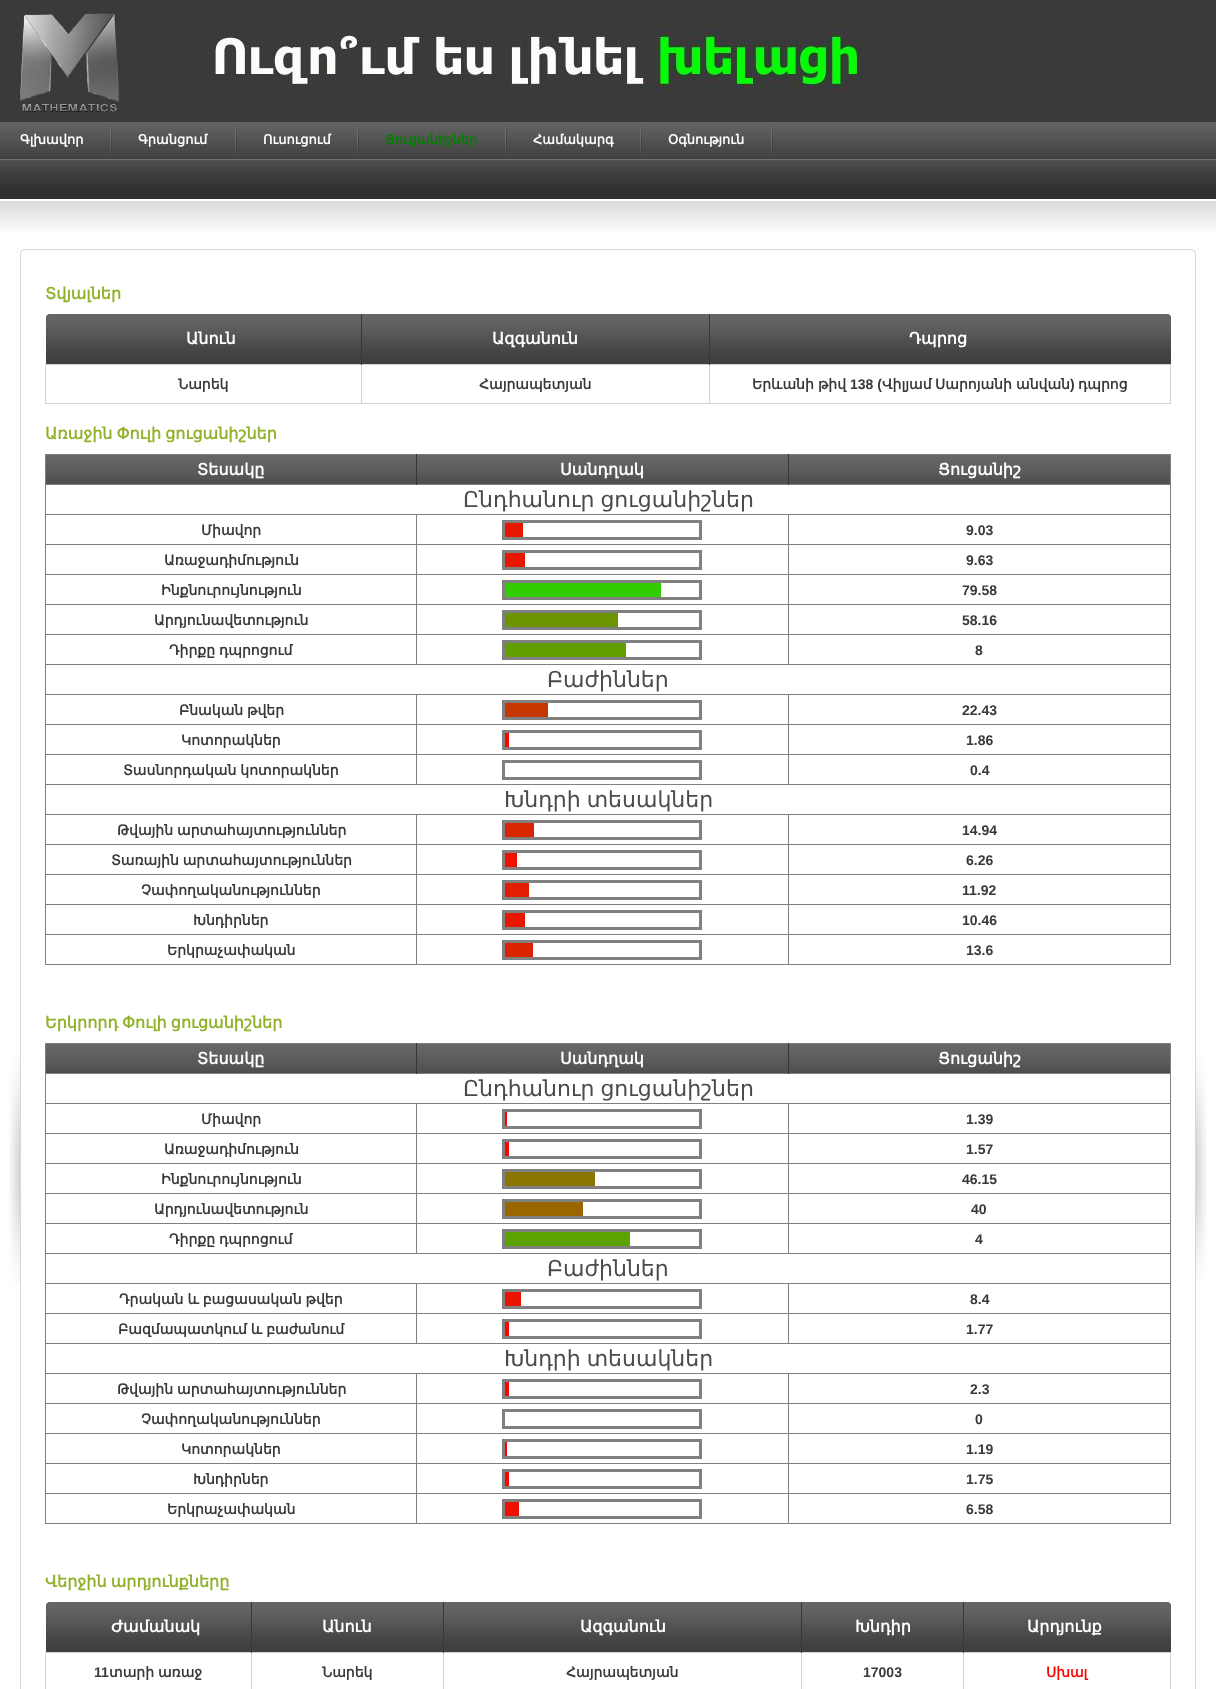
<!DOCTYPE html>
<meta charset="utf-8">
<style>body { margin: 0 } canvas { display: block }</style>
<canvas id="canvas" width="1216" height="1689"></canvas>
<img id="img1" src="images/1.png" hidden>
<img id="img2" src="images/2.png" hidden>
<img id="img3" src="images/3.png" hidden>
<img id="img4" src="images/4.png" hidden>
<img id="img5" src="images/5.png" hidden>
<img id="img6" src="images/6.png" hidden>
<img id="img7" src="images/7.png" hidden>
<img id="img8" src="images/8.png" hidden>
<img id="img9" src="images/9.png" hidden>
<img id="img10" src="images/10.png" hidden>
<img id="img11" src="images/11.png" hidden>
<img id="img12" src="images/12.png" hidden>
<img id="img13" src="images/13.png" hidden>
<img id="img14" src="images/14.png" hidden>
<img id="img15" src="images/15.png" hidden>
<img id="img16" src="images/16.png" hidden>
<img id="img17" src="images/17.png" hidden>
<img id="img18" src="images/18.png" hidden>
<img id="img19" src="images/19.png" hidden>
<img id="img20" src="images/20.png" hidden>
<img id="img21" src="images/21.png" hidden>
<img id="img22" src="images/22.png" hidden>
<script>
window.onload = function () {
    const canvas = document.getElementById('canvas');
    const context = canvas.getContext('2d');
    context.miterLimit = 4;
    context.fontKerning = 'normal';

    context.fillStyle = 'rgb(255, 255, 255)';
    context.fillRect(0, 0, 1216, 1689);
    context.fillStyle = 'rgb(58, 58, 58)';
    context.fillRect(0, 0, 1216, 122);
    context.drawImage(document.getElementById('img1'), 20, 13, 99, 99);
    context.drawImage(document.getElementById('img2'), 215, 25, 656, 66);
    context.drawImage(document.getElementById('img3'), 0, 122, 1216, 77);
    context.drawImage(document.getElementById('img4'), 110, 126, 2, 28);
    context.drawImage(document.getElementById('img4'), 235, 126, 2, 28);
    context.drawImage(document.getElementById('img4'), 357, 126, 2, 28);
    context.drawImage(document.getElementById('img4'), 505, 126, 2, 28);
    context.drawImage(document.getElementById('img4'), 640, 126, 2, 28);
    context.drawImage(document.getElementById('img4'), 771, 126, 2, 28);
    context.drawImage(document.getElementById('img5'), 0, 201, 1216, 30);
    context.drawImage(document.getElementById('img6'), 20, 249, 15, 15);
    context.fillStyle = 'rgb(215, 215, 215)';
    context.fillRect(35, 249, 1146, 1);
    context.drawImage(document.getElementById('img7'), 1181, 249, 15, 15);
    context.drawImage(document.getElementById('img8'), 9, 1057, 11, 227);
    context.drawImage(document.getElementById('img9'), 1196, 1056, 11, 225);
    context.fillRect(20, 264, 1, 1425);
    context.drawImage(document.getElementById('img10'), 46, 314, 15, 50);
    context.drawImage(document.getElementById('img11'), 61, 314, 300, 50);
    context.drawImage(document.getElementById('img12'), 362, 314, 347, 50);
    context.fillStyle = 'rgb(210, 210, 210)';
    context.fillRect(709, 364, 462, 1);
    context.fillRect(1170, 364, 1, 40);
    context.fillRect(709, 403, 462, 1);
    context.fillRect(709, 364, 1, 40);
    context.fillRect(361, 364, 349, 1);
    context.fillRect(361, 403, 349, 1);
    context.fillRect(361, 364, 1, 40);
    context.fillRect(45, 364, 317, 1);
    context.fillStyle = 'rgb(55, 55, 55)';
    context.fillRect(361, 314, 1, 51);
    context.drawImage(document.getElementById('img13'), 710, 314, 456, 50);
    context.fillRect(709, 314, 1, 51);
    context.drawImage(document.getElementById('img14'), 1166, 314, 5, 50);
    context.fillStyle = 'rgb(210, 210, 210)';
    context.fillRect(45, 403, 317, 1);
    context.fillRect(45, 364, 1, 40);
    context.fillStyle = 'rgb(128, 128, 128)';
    context.fillRect(45, 454, 1126, 1);
    context.fillRect(1170, 454, 1, 511);
    context.fillRect(45, 964, 1126, 1);
    context.fillRect(45, 454, 1, 511);
    context.drawImage(document.getElementById('img15'), 46, 455, 370, 29);
    context.drawImage(document.getElementById('img16'), 417, 455, 371, 29);
    context.fillRect(45, 484, 1126, 1);
    context.fillStyle = 'rgb(55, 55, 55)';
    context.fillRect(416, 454, 1, 31);
    context.drawImage(document.getElementById('img17'), 789, 455, 381, 29);
    context.fillRect(788, 454, 1, 31);
    context.fillStyle = 'rgb(128, 128, 128)';
    context.fillRect(788, 514, 383, 1);
    context.fillRect(788, 544, 383, 1);
    context.fillRect(788, 574, 383, 1);
    context.fillRect(788, 604, 383, 1);
    context.fillRect(788, 634, 383, 1);
    context.fillRect(45, 664, 1126, 1);
    context.fillRect(788, 634, 1, 31);
    context.fillRect(416, 634, 373, 1);
    context.fillRect(788, 604, 1, 31);
    context.fillRect(416, 604, 373, 1);
    context.fillRect(788, 574, 1, 31);
    context.fillRect(416, 574, 373, 1);
    context.fillRect(788, 544, 1, 31);
    context.fillRect(416, 544, 373, 1);
    context.fillRect(788, 514, 1, 31);
    context.fillRect(416, 514, 373, 1);
    context.fillRect(416, 634, 1, 31);
    context.fillRect(45, 634, 372, 1);
    context.fillRect(416, 604, 1, 31);
    context.fillRect(45, 604, 372, 1);
    context.fillRect(416, 574, 1, 31);
    context.fillRect(45, 574, 372, 1);
    context.fillRect(416, 544, 1, 31);
    context.fillRect(45, 544, 372, 1);
    context.fillRect(416, 514, 1, 31);
    context.fillRect(45, 514, 372, 1);
    context.fillRect(502, 520, 200, 3);
    context.fillRect(699, 520, 3, 20);
    context.fillRect(502, 537, 200, 3);
    context.fillRect(502, 520, 3, 20);
    context.fillStyle = 'rgb(232, 23, 0)';
    context.fillRect(505, 523, 18, 14);
    context.fillStyle = 'rgb(128, 128, 128)';
    context.fillRect(502, 550, 200, 3);
    context.fillRect(699, 550, 3, 20);
    context.fillRect(502, 567, 200, 3);
    context.fillRect(502, 550, 3, 20);
    context.fillStyle = 'rgb(230, 25, 0)';
    context.fillRect(505, 553, 20, 14);
    context.fillStyle = 'rgb(128, 128, 128)';
    context.fillRect(502, 580, 200, 3);
    context.fillRect(699, 580, 3, 20);
    context.fillRect(502, 597, 200, 3);
    context.fillRect(502, 580, 3, 20);
    context.fillStyle = 'rgb(51, 204, 0)';
    context.fillRect(505, 583, 156, 14);
    context.fillStyle = 'rgb(128, 128, 128)';
    context.fillRect(502, 610, 200, 3);
    context.fillRect(699, 610, 3, 20);
    context.fillRect(502, 627, 200, 3);
    context.fillRect(502, 610, 3, 20);
    context.fillStyle = 'rgb(107, 148, 0)';
    context.fillRect(505, 613, 113, 14);
    context.fillStyle = 'rgb(128, 128, 128)';
    context.fillRect(502, 640, 200, 3);
    context.fillRect(699, 640, 3, 20);
    context.fillRect(502, 657, 200, 3);
    context.fillRect(502, 640, 3, 20);
    context.fillStyle = 'rgb(97, 158, 0)';
    context.fillRect(505, 643, 121, 14);
    context.fillStyle = 'rgb(128, 128, 128)';
    context.fillRect(788, 694, 383, 1);
    context.fillRect(788, 724, 383, 1);
    context.fillRect(788, 754, 383, 1);
    context.fillRect(45, 784, 1126, 1);
    context.fillRect(788, 754, 1, 31);
    context.fillRect(416, 754, 373, 1);
    context.fillRect(788, 724, 1, 31);
    context.fillRect(416, 724, 373, 1);
    context.fillRect(788, 694, 1, 31);
    context.fillRect(416, 694, 373, 1);
    context.fillRect(416, 754, 1, 31);
    context.fillRect(45, 754, 372, 1);
    context.fillRect(416, 724, 1, 31);
    context.fillRect(45, 724, 372, 1);
    context.fillRect(416, 694, 1, 31);
    context.fillRect(45, 694, 372, 1);
    context.fillRect(502, 700, 200, 3);
    context.fillRect(699, 700, 3, 20);
    context.fillRect(502, 717, 200, 3);
    context.fillRect(502, 700, 3, 20);
    context.fillStyle = 'rgb(199, 56, 0)';
    context.fillRect(505, 703, 43, 14);
    context.fillStyle = 'rgb(128, 128, 128)';
    context.fillRect(502, 730, 200, 3);
    context.fillRect(699, 730, 3, 20);
    context.fillRect(502, 747, 200, 3);
    context.fillRect(502, 730, 3, 20);
    context.fillStyle = 'rgb(250, 5, 0)';
    context.fillRect(505, 733, 4, 14);
    context.fillStyle = 'rgb(128, 128, 128)';
    context.fillRect(502, 760, 200, 3);
    context.fillRect(699, 760, 3, 20);
    context.fillRect(502, 777, 200, 3);
    context.fillRect(502, 760, 3, 20);
    context.fillRect(788, 814, 383, 1);
    context.fillRect(788, 844, 383, 1);
    context.fillRect(788, 874, 383, 1);
    context.fillRect(788, 904, 383, 1);
    context.fillRect(788, 934, 383, 1);
    context.fillRect(788, 934, 1, 31);
    context.fillRect(416, 934, 373, 1);
    context.fillRect(788, 904, 1, 31);
    context.fillRect(416, 904, 373, 1);
    context.fillRect(788, 874, 1, 31);
    context.fillRect(416, 874, 373, 1);
    context.fillRect(788, 844, 1, 31);
    context.fillRect(416, 844, 373, 1);
    context.fillRect(788, 814, 1, 31);
    context.fillRect(416, 814, 373, 1);
    context.fillRect(416, 934, 1, 31);
    context.fillRect(45, 934, 372, 1);
    context.fillRect(416, 904, 1, 31);
    context.fillRect(45, 904, 372, 1);
    context.fillRect(416, 874, 1, 31);
    context.fillRect(45, 874, 372, 1);
    context.fillRect(416, 844, 1, 31);
    context.fillRect(45, 844, 372, 1);
    context.fillRect(416, 814, 1, 31);
    context.fillRect(45, 814, 372, 1);
    context.fillRect(502, 820, 200, 3);
    context.fillRect(699, 820, 3, 20);
    context.fillRect(502, 837, 200, 3);
    context.fillRect(502, 820, 3, 20);
    context.fillStyle = 'rgb(217, 38, 0)';
    context.fillRect(505, 823, 29, 14);
    context.fillStyle = 'rgb(128, 128, 128)';
    context.fillRect(502, 850, 200, 3);
    context.fillRect(699, 850, 3, 20);
    context.fillRect(502, 867, 200, 3);
    context.fillRect(502, 850, 3, 20);
    context.fillStyle = 'rgb(240, 15, 0)';
    context.fillRect(505, 853, 12, 14);
    context.fillStyle = 'rgb(128, 128, 128)';
    context.fillRect(502, 880, 200, 3);
    context.fillRect(699, 880, 3, 20);
    context.fillRect(502, 897, 200, 3);
    context.fillRect(502, 880, 3, 20);
    context.fillStyle = 'rgb(225, 30, 0)';
    context.fillRect(505, 883, 24, 14);
    context.fillStyle = 'rgb(128, 128, 128)';
    context.fillRect(502, 910, 200, 3);
    context.fillRect(699, 910, 3, 20);
    context.fillRect(502, 927, 200, 3);
    context.fillRect(502, 910, 3, 20);
    context.fillStyle = 'rgb(230, 25, 0)';
    context.fillRect(505, 913, 20, 14);
    context.fillStyle = 'rgb(128, 128, 128)';
    context.fillRect(502, 940, 200, 3);
    context.fillRect(699, 940, 3, 20);
    context.fillRect(502, 957, 200, 3);
    context.fillRect(502, 940, 3, 20);
    context.fillStyle = 'rgb(220, 35, 0)';
    context.fillRect(505, 943, 28, 14);
    context.fillStyle = 'rgb(128, 128, 128)';
    context.fillRect(45, 1043, 1126, 1);
    context.fillRect(1170, 1043, 1, 481);
    context.fillRect(45, 1523, 1126, 1);
    context.fillRect(45, 1043, 1, 481);
    context.drawImage(document.getElementById('img15'), 46, 1044, 370, 29);
    context.drawImage(document.getElementById('img16'), 417, 1044, 371, 29);
    context.fillRect(45, 1073, 1126, 1);
    context.fillStyle = 'rgb(55, 55, 55)';
    context.fillRect(416, 1043, 1, 31);
    context.drawImage(document.getElementById('img17'), 789, 1044, 381, 29);
    context.fillRect(788, 1043, 1, 31);
    context.fillStyle = 'rgb(128, 128, 128)';
    context.fillRect(788, 1103, 383, 1);
    context.fillRect(788, 1133, 383, 1);
    context.fillRect(788, 1163, 383, 1);
    context.fillRect(788, 1193, 383, 1);
    context.fillRect(788, 1223, 383, 1);
    context.fillRect(45, 1253, 1126, 1);
    context.fillRect(788, 1223, 1, 31);
    context.fillRect(416, 1223, 373, 1);
    context.fillRect(788, 1193, 1, 31);
    context.fillRect(416, 1193, 373, 1);
    context.fillRect(788, 1163, 1, 31);
    context.fillRect(416, 1163, 373, 1);
    context.fillRect(788, 1133, 1, 31);
    context.fillRect(416, 1133, 373, 1);
    context.fillRect(788, 1103, 1, 31);
    context.fillRect(416, 1103, 373, 1);
    context.fillRect(416, 1223, 1, 31);
    context.fillRect(45, 1223, 372, 1);
    context.fillRect(416, 1193, 1, 31);
    context.fillRect(45, 1193, 372, 1);
    context.fillRect(416, 1163, 1, 31);
    context.fillRect(45, 1163, 372, 1);
    context.fillRect(416, 1133, 1, 31);
    context.fillRect(45, 1133, 372, 1);
    context.fillRect(416, 1103, 1, 31);
    context.fillRect(45, 1103, 372, 1);
    context.fillRect(502, 1109, 200, 3);
    context.fillRect(699, 1109, 3, 20);
    context.fillRect(502, 1126, 200, 3);
    context.fillRect(502, 1109, 3, 20);
    context.fillStyle = 'rgb(253, 2, 0)';
    context.fillRect(505, 1112, 2, 14);
    context.fillStyle = 'rgb(128, 128, 128)';
    context.fillRect(502, 1139, 200, 3);
    context.fillRect(699, 1139, 3, 20);
    context.fillRect(502, 1156, 200, 3);
    context.fillRect(502, 1139, 3, 20);
    context.fillStyle = 'rgb(250, 5, 0)';
    context.fillRect(505, 1142, 4, 14);
    context.fillStyle = 'rgb(128, 128, 128)';
    context.fillRect(502, 1169, 200, 3);
    context.fillRect(699, 1169, 3, 20);
    context.fillRect(502, 1186, 200, 3);
    context.fillRect(502, 1169, 3, 20);
    context.fillStyle = 'rgb(138, 117, 0)';
    context.fillRect(505, 1172, 90, 14);
    context.fillStyle = 'rgb(128, 128, 128)';
    context.fillRect(502, 1199, 200, 3);
    context.fillRect(699, 1199, 3, 20);
    context.fillRect(502, 1216, 200, 3);
    context.fillRect(502, 1199, 3, 20);
    context.fillStyle = 'rgb(153, 102, 0)';
    context.fillRect(505, 1202, 78, 14);
    context.fillStyle = 'rgb(128, 128, 128)';
    context.fillRect(502, 1229, 200, 3);
    context.fillRect(699, 1229, 3, 20);
    context.fillRect(502, 1246, 200, 3);
    context.fillRect(502, 1229, 3, 20);
    context.fillStyle = 'rgb(92, 163, 0)';
    context.fillRect(505, 1232, 125, 14);
    context.fillStyle = 'rgb(128, 128, 128)';
    context.fillRect(788, 1283, 383, 1);
    context.fillRect(788, 1313, 383, 1);
    context.fillRect(45, 1343, 1126, 1);
    context.fillRect(788, 1313, 1, 31);
    context.fillRect(416, 1313, 373, 1);
    context.fillRect(788, 1283, 1, 31);
    context.fillRect(416, 1283, 373, 1);
    context.fillRect(416, 1313, 1, 31);
    context.fillRect(45, 1313, 372, 1);
    context.fillRect(416, 1283, 1, 31);
    context.fillRect(45, 1283, 372, 1);
    context.fillRect(502, 1289, 200, 3);
    context.fillRect(699, 1289, 3, 20);
    context.fillRect(502, 1306, 200, 3);
    context.fillRect(502, 1289, 3, 20);
    context.fillStyle = 'rgb(235, 20, 0)';
    context.fillRect(505, 1292, 16, 14);
    context.fillStyle = 'rgb(128, 128, 128)';
    context.fillRect(502, 1319, 200, 3);
    context.fillRect(699, 1319, 3, 20);
    context.fillRect(502, 1336, 200, 3);
    context.fillRect(502, 1319, 3, 20);
    context.fillStyle = 'rgb(250, 5, 0)';
    context.fillRect(505, 1322, 4, 14);
    context.fillStyle = 'rgb(128, 128, 128)';
    context.fillRect(788, 1373, 383, 1);
    context.fillRect(788, 1403, 383, 1);
    context.fillRect(788, 1433, 383, 1);
    context.fillRect(788, 1463, 383, 1);
    context.fillRect(788, 1493, 383, 1);
    context.fillRect(788, 1493, 1, 31);
    context.fillRect(416, 1493, 373, 1);
    context.fillRect(788, 1463, 1, 31);
    context.fillRect(416, 1463, 373, 1);
    context.fillRect(788, 1433, 1, 31);
    context.fillRect(416, 1433, 373, 1);
    context.fillRect(788, 1403, 1, 31);
    context.fillRect(416, 1403, 373, 1);
    context.fillRect(788, 1373, 1, 31);
    context.fillRect(416, 1373, 373, 1);
    context.fillRect(416, 1493, 1, 31);
    context.fillRect(45, 1493, 372, 1);
    context.fillRect(416, 1463, 1, 31);
    context.fillRect(45, 1463, 372, 1);
    context.fillRect(416, 1433, 1, 31);
    context.fillRect(45, 1433, 372, 1);
    context.fillRect(416, 1403, 1, 31);
    context.fillRect(45, 1403, 372, 1);
    context.fillRect(416, 1373, 1, 31);
    context.fillRect(45, 1373, 372, 1);
    context.fillRect(502, 1379, 200, 3);
    context.fillRect(699, 1379, 3, 20);
    context.fillRect(502, 1396, 200, 3);
    context.fillRect(502, 1379, 3, 20);
    context.fillStyle = 'rgb(250, 5, 0)';
    context.fillRect(505, 1382, 4, 14);
    context.fillStyle = 'rgb(128, 128, 128)';
    context.fillRect(502, 1409, 200, 3);
    context.fillRect(699, 1409, 3, 20);
    context.fillRect(502, 1426, 200, 3);
    context.fillRect(502, 1409, 3, 20);
    context.fillRect(502, 1439, 200, 3);
    context.fillRect(699, 1439, 3, 20);
    context.fillRect(502, 1456, 200, 3);
    context.fillRect(502, 1439, 3, 20);
    context.fillStyle = 'rgb(253, 2, 0)';
    context.fillRect(505, 1442, 2, 14);
    context.fillStyle = 'rgb(128, 128, 128)';
    context.fillRect(502, 1469, 200, 3);
    context.fillRect(699, 1469, 3, 20);
    context.fillRect(502, 1486, 200, 3);
    context.fillRect(502, 1469, 3, 20);
    context.fillStyle = 'rgb(250, 5, 0)';
    context.fillRect(505, 1472, 4, 14);
    context.fillStyle = 'rgb(128, 128, 128)';
    context.fillRect(502, 1499, 200, 3);
    context.fillRect(699, 1499, 3, 20);
    context.fillRect(502, 1516, 200, 3);
    context.fillRect(502, 1499, 3, 20);
    context.fillStyle = 'rgb(238, 17, 0)';
    context.fillRect(505, 1502, 14, 14);
    context.drawImage(document.getElementById('img10'), 46, 1602, 15, 50);
    context.drawImage(document.getElementById('img18'), 61, 1602, 190, 50);
    context.drawImage(document.getElementById('img19'), 252, 1602, 191, 50);
    context.fillStyle = 'rgb(210, 210, 210)';
    context.fillRect(963, 1652, 208, 1);
    context.fillRect(963, 1652, 1, 37);
    context.fillRect(801, 1652, 163, 1);
    context.fillRect(801, 1652, 1, 37);
    context.fillRect(443, 1652, 359, 1);
    context.fillRect(443, 1652, 1, 37);
    context.fillRect(251, 1652, 193, 1);
    context.fillRect(251, 1652, 1, 37);
    context.fillRect(45, 1652, 207, 1);
    context.fillStyle = 'rgb(55, 55, 55)';
    context.fillRect(251, 1602, 1, 51);
    context.drawImage(document.getElementById('img20'), 444, 1602, 357, 50);
    context.fillRect(443, 1602, 1, 51);
    context.drawImage(document.getElementById('img21'), 802, 1602, 161, 50);
    context.fillRect(801, 1602, 1, 51);
    context.drawImage(document.getElementById('img22'), 964, 1602, 202, 50);
    context.fillRect(963, 1602, 1, 51);
    context.drawImage(document.getElementById('img14'), 1166, 1602, 5, 50);
    context.fillStyle = 'rgb(210, 210, 210)';
    context.fillRect(45, 1652, 1, 37);
    context.fillRect(1170, 1652, 1, 37);
    context.fillStyle = 'rgb(215, 215, 215)';
    context.fillRect(1195, 264, 1, 1425);
    context.font = 'bold 13px DejaVu Sans';
    context.fillStyle = 'rgb(255, 255, 255)';
    context.fillText('Գլխավոր', 20, 144);
    context.fillText('Գրանցում', 138, 144);
    context.fillText('Ուսուցում', 263, 144);
    context.fillStyle = 'rgb(0, 128, 0)';
    context.fillText('Ցուցանիշներ', 385, 144);
    context.fillStyle = 'rgb(255, 255, 255)';
    context.fillText('Համակարգ', 533, 144);
    context.fillText('Օգնություն', 668, 144);
    context.font = 'bold 16px DejaVu Sans';
    context.fillStyle = 'rgb(146, 178, 44)';
    context.fillText('Տվյալներ', 45, 299);
    context.fillStyle = 'rgb(255, 255, 255)';
    context.fillText('Անուն', 186, 344);
    context.fillText('Ազգանուն', 492, 344);
    context.fillText('Դպրոց', 909, 344);
    context.font = 'bold 14px DejaVu Sans';
    context.fillStyle = 'rgb(57, 57, 57)';
    context.fillText('Նարեկ', 178, 389);
    context.fillText('Հայրապետյան', 479, 389);
    context.fillText('Երևանի', 752, 389);
    context.fillText('թիվ', 818, 389);
    context.font = 'bold 14px Liberation Sans';
    context.fillText('138 (', 850, 389);
    context.font = 'bold 14px DejaVu Sans';
    context.fillText('Վիլյամ', 882, 389);
    context.fillText('Սարոյանի', 935, 389);
    context.fillText('անվան', 1016, 389);
    context.font = 'bold 14px Liberation Sans';
    context.fillText(')', 1070, 389);
    context.font = 'bold 14px DejaVu Sans';
    context.fillText('դպրոց', 1078, 389);
    context.wordSpacing = '-1px';
    context.font = 'bold 16px DejaVu Sans';
    context.fillStyle = 'rgb(146, 178, 44)';
    context.fillText('Առաջին Փուլի ցուցանիշներ', 45, 439);
    context.wordSpacing = '0px';
    context.fillStyle = 'rgb(255, 255, 255)';
    context.fillText('Տեսակը', 197, 475);
    context.fillText('Սանդղակ', 560, 475);
    context.fillText('Ցուցանիշ', 938, 475);
    context.wordSpacing = '-1px';
    context.font = '22px DejaVu Sans';
    context.fillStyle = 'rgb(75, 75, 75)';
    context.fillText('Ընդհանուր ցուցանիշներ', 463, 507);
    context.wordSpacing = '0px';
    context.font = 'bold 14px DejaVu Sans';
    context.fillStyle = 'rgb(57, 57, 57)';
    context.fillText('Միավոր', 201, 535);
    context.font = 'bold 14px Liberation Sans';
    context.fillText('9.03', 966, 535);
    context.font = 'bold 14px DejaVu Sans';
    context.fillText('Առաջադիմություն', 164, 565);
    context.font = 'bold 14px Liberation Sans';
    context.fillText('9.63', 966, 565);
    context.font = 'bold 14px DejaVu Sans';
    context.fillText('Ինքնուրույնություն', 161, 595);
    context.font = 'bold 14px Liberation Sans';
    context.fillText('79.58', 962, 595);
    context.font = 'bold 14px DejaVu Sans';
    context.fillText('Արդյունավետություն', 154, 625);
    context.font = 'bold 14px Liberation Sans';
    context.fillText('58.16', 962, 625);
    context.wordSpacing = '-0.5px';
    context.font = 'bold 14px DejaVu Sans';
    context.fillText('Դիրքը դպրոցում', 169, 655);
    context.wordSpacing = '0px';
    context.font = 'bold 14px Liberation Sans';
    context.fillText('8', 975, 655);
    context.font = '22px DejaVu Sans';
    context.fillStyle = 'rgb(75, 75, 75)';
    context.fillText('Բաժիններ', 547, 687);
    context.wordSpacing = '-0.5px';
    context.font = 'bold 14px DejaVu Sans';
    context.fillStyle = 'rgb(57, 57, 57)';
    context.fillText('Բնական թվեր', 179, 715);
    context.wordSpacing = '0px';
    context.font = 'bold 14px Liberation Sans';
    context.fillText('22.43', 962, 715);
    context.font = 'bold 14px DejaVu Sans';
    context.fillText('Կոտորակներ', 181, 745);
    context.font = 'bold 14px Liberation Sans';
    context.fillText('1.86', 966, 745);
    context.wordSpacing = '-0.5px';
    context.font = 'bold 14px DejaVu Sans';
    context.fillText('Տասնորդական կոտորակներ', 123, 775);
    context.wordSpacing = '0px';
    context.font = 'bold 14px Liberation Sans';
    context.fillText('0.4', 970, 775);
    context.wordSpacing = '-1px';
    context.font = '22px DejaVu Sans';
    context.fillStyle = 'rgb(75, 75, 75)';
    context.fillText('Խնդրի տեսակներ', 504, 807);
    context.wordSpacing = '-0.5px';
    context.font = 'bold 14px DejaVu Sans';
    context.fillStyle = 'rgb(57, 57, 57)';
    context.fillText('Թվային արտահայտություններ', 117, 835);
    context.wordSpacing = '0px';
    context.font = 'bold 14px Liberation Sans';
    context.fillText('14.94', 962, 835);
    context.wordSpacing = '-0.5px';
    context.font = 'bold 14px DejaVu Sans';
    context.fillText('Տառային արտահայտություններ', 111, 865);
    context.wordSpacing = '0px';
    context.font = 'bold 14px Liberation Sans';
    context.fillText('6.26', 966, 865);
    context.font = 'bold 14px DejaVu Sans';
    context.fillText('Չափողականություններ', 141, 895);
    context.font = 'bold 14px Liberation Sans';
    context.fillText('11.92', 962, 895);
    context.font = 'bold 14px DejaVu Sans';
    context.fillText('Խնդիրներ', 193, 925);
    context.font = 'bold 14px Liberation Sans';
    context.fillText('10.46', 962, 925);
    context.font = 'bold 14px DejaVu Sans';
    context.fillText('Երկրաչափական', 167, 955);
    context.font = 'bold 14px Liberation Sans';
    context.fillText('13.6', 966, 955);
    context.wordSpacing = '-1px';
    context.font = 'bold 16px DejaVu Sans';
    context.fillStyle = 'rgb(146, 178, 44)';
    context.fillText('Երկրորդ Փուլի ցուցանիշներ', 45, 1028);
    context.wordSpacing = '0px';
    context.fillStyle = 'rgb(255, 255, 255)';
    context.fillText('Տեսակը', 197, 1064);
    context.fillText('Սանդղակ', 560, 1064);
    context.fillText('Ցուցանիշ', 938, 1064);
    context.wordSpacing = '-1px';
    context.font = '22px DejaVu Sans';
    context.fillStyle = 'rgb(75, 75, 75)';
    context.fillText('Ընդհանուր ցուցանիշներ', 463, 1096);
    context.wordSpacing = '0px';
    context.font = 'bold 14px DejaVu Sans';
    context.fillStyle = 'rgb(57, 57, 57)';
    context.fillText('Միավոր', 201, 1124);
    context.font = 'bold 14px Liberation Sans';
    context.fillText('1.39', 966, 1124);
    context.font = 'bold 14px DejaVu Sans';
    context.fillText('Առաջադիմություն', 164, 1154);
    context.font = 'bold 14px Liberation Sans';
    context.fillText('1.57', 966, 1154);
    context.font = 'bold 14px DejaVu Sans';
    context.fillText('Ինքնուրույնություն', 161, 1184);
    context.font = 'bold 14px Liberation Sans';
    context.fillText('46.15', 962, 1184);
    context.font = 'bold 14px DejaVu Sans';
    context.fillText('Արդյունավետություն', 154, 1214);
    context.font = 'bold 14px Liberation Sans';
    context.fillText('40', 971, 1214);
    context.wordSpacing = '-0.5px';
    context.font = 'bold 14px DejaVu Sans';
    context.fillText('Դիրքը դպրոցում', 169, 1244);
    context.wordSpacing = '0px';
    context.font = 'bold 14px Liberation Sans';
    context.fillText('4', 975, 1244);
    context.font = '22px DejaVu Sans';
    context.fillStyle = 'rgb(75, 75, 75)';
    context.fillText('Բաժիններ', 547, 1276);
    context.wordSpacing = '-0.5px';
    context.font = 'bold 14px DejaVu Sans';
    context.fillStyle = 'rgb(57, 57, 57)';
    context.fillText('Դրական և բացասական թվեր', 119, 1304);
    context.wordSpacing = '0px';
    context.font = 'bold 14px Liberation Sans';
    context.fillText('8.4', 970, 1304);
    context.wordSpacing = '-0.5px';
    context.font = 'bold 14px DejaVu Sans';
    context.fillText('Բազմապատկում և բաժանում', 118, 1334);
    context.wordSpacing = '0px';
    context.font = 'bold 14px Liberation Sans';
    context.fillText('1.77', 966, 1334);
    context.wordSpacing = '-1px';
    context.font = '22px DejaVu Sans';
    context.fillStyle = 'rgb(75, 75, 75)';
    context.fillText('Խնդրի տեսակներ', 504, 1366);
    context.wordSpacing = '-0.5px';
    context.font = 'bold 14px DejaVu Sans';
    context.fillStyle = 'rgb(57, 57, 57)';
    context.fillText('Թվային արտահայտություններ', 117, 1394);
    context.wordSpacing = '0px';
    context.font = 'bold 14px Liberation Sans';
    context.fillText('2.3', 970, 1394);
    context.font = 'bold 14px DejaVu Sans';
    context.fillText('Չափողականություններ', 141, 1424);
    context.font = 'bold 14px Liberation Sans';
    context.fillText('0', 975, 1424);
    context.font = 'bold 14px DejaVu Sans';
    context.fillText('Կոտորակներ', 181, 1454);
    context.font = 'bold 14px Liberation Sans';
    context.fillText('1.19', 966, 1454);
    context.font = 'bold 14px DejaVu Sans';
    context.fillText('Խնդիրներ', 193, 1484);
    context.font = 'bold 14px Liberation Sans';
    context.fillText('1.75', 966, 1484);
    context.font = 'bold 14px DejaVu Sans';
    context.fillText('Երկրաչափական', 167, 1514);
    context.font = 'bold 14px Liberation Sans';
    context.fillText('6.58', 966, 1514);
    context.wordSpacing = '-1px';
    context.font = 'bold 16px DejaVu Sans';
    context.fillStyle = 'rgb(146, 178, 44)';
    context.fillText('Վերջին արդյունքները', 45, 1587);
    context.wordSpacing = '0px';
    context.fillStyle = 'rgb(255, 255, 255)';
    context.fillText('Ժամանակ', 111, 1632);
    context.fillText('Անուն', 322, 1632);
    context.fillText('Ազգանուն', 580, 1632);
    context.fillText('Խնդիր', 855, 1632);
    context.fillText('Արդյունք', 1027, 1632);
    context.font = 'bold 14px Liberation Sans';
    context.fillStyle = 'rgb(57, 57, 57)';
    context.fillText('11', 94, 1677);
    context.wordSpacing = '-0.5px';
    context.font = 'bold 14px DejaVu Sans';
    context.fillText('տարի առաջ', 109, 1677);
    context.wordSpacing = '0px';
    context.fillText('Նարեկ', 322, 1677);
    context.fillText('Հայրապետյան', 566, 1677);
    context.font = 'bold 14px Liberation Sans';
    context.fillText('17003', 863, 1677);
    context.font = 'bold 14px DejaVu Sans';
    context.fillStyle = 'rgb(255, 0, 0)';
    context.fillText('Սխալ', 1046, 1677);
};
</script>
